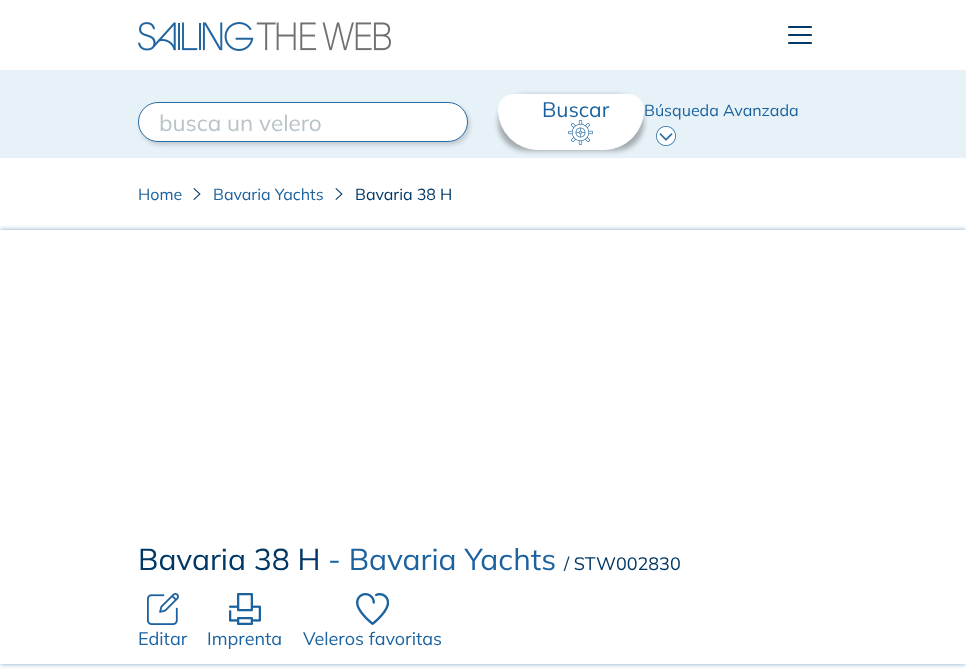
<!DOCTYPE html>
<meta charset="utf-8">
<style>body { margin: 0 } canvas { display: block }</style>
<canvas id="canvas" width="966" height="670"></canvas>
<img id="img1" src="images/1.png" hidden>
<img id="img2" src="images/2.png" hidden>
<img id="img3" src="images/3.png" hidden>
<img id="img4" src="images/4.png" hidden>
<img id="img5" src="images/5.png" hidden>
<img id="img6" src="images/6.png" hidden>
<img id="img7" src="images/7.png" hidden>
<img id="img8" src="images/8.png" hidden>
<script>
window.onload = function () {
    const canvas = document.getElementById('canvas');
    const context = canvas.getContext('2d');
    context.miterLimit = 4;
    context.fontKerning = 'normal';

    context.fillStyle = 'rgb(255, 255, 255)';
    context.fillRect(0, 0, 966, 670);
    context.drawImage(document.getElementById('img1'), 138, 22, 253, 29);
    context.drawImage(document.getElementById('img2'), 788, 26, 24, 18);
    context.fillStyle = 'rgb(231, 242, 248)';
    context.fillRect(0, 70, 966, 88);
    context.fillStyle = 'rgba(0, 0, 0, 0.29)';
    context.filter = 'blur(2.5px)';
    context.beginPath();
    context.roundRect(498, 95, 146, 56, 40);
    context.fill();
    context.filter = 'none';
    context.fillStyle = 'rgb(255, 255, 255)';
    context.beginPath();
    context.roundRect(498.5, 94.5, 145, 55, [14.5, 14.5, 39.5, 39.5]);
    context.fill();
    context.strokeStyle = 'rgb(255, 255, 255)';
    context.stroke();
    context.drawImage(document.getElementById('img3'), 568, 120, 25, 25);
    context.drawImage(document.getElementById('img4'), 656, 126, 20, 20);
    context.fillStyle = 'rgba(0, 0, 0, 0.16)';
    context.filter = 'blur(2px)';
    context.beginPath();
    context.roundRect(140, 105, 330, 40, 20);
    context.fill();
    context.filter = 'none';
    context.fillStyle = 'rgb(255, 255, 255)';
    context.beginPath();
    context.roundRect(138.5, 102.5, 329, 39, 19.5);
    context.fill();
    context.strokeStyle = 'rgb(41, 108, 165)';
    context.stroke();
    context.drawImage(document.getElementById('img5'), 193, 188, 8, 12);
    context.drawImage(document.getElementById('img5'), 335, 188, 8, 12);
    context.save();
    context.beginPath();
    context.moveTo(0, 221);
    context.lineTo(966, 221);
    context.lineTo(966, 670);
    context.lineTo(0, 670);
    context.closePath();
    context.moveTo(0, 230);
    context.lineTo(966, 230);
    context.lineTo(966, 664);
    context.lineTo(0, 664);
    context.closePath();
    context.clip('evenodd');
    context.fillStyle = 'rgba(27, 98, 159, 0.56)';
    context.filter = 'blur(2.5px)';
    context.beginPath();
    context.rect(0, 230, 966, 434);
    context.fill();
    context.filter = 'none';
    context.restore();
    context.drawImage(document.getElementById('img6'), 147, 593, 32, 32);
    context.drawImage(document.getElementById('img7'), 229, 593, 32, 32);
    context.drawImage(document.getElementById('img8'), 356, 593, 33, 32);
    context.font = '200 21px Mulish';
    context.fillStyle = 'rgb(27, 98, 159)';
    context.fillText('Buscar', 542, 117);
    context.font = '200 16px Mulish';
    context.fillText('Búsqueda Avanzada', 644, 116);
    context.font = '200 22.5px Mulish';
    context.fillStyle = 'rgb(184, 195, 201)';
    context.fillText('busca un velero', 159, 131);
    context.font = '200 16px Mulish';
    context.fillStyle = 'rgb(27, 98, 159)';
    context.fillText('Home', 138, 200);
    context.fillText('Bavaria Yachts', 213, 200);
    context.fillStyle = 'rgb(0, 55, 101)';
    context.fillText('Bavaria 38 H', 355, 200);
    context.font = '200 30px Mulish';
    context.fillText('Bavaria 38 H', 138, 570);
    context.fillStyle = 'rgb(27, 98, 159)';
    context.fillText('- Bavaria Yachts', 328, 570);
    context.font = '200 18px Mulish';
    context.fillStyle = 'rgb(0, 55, 101)';
    context.fillText('/ STW002830', 564, 570);
    context.fillStyle = 'rgb(27, 98, 159)';
    context.fillText('Editar', 138, 645);
    context.fillText('Imprenta', 207, 645);
    context.fillText('Veleros favoritas', 303, 645);
};
</script>
